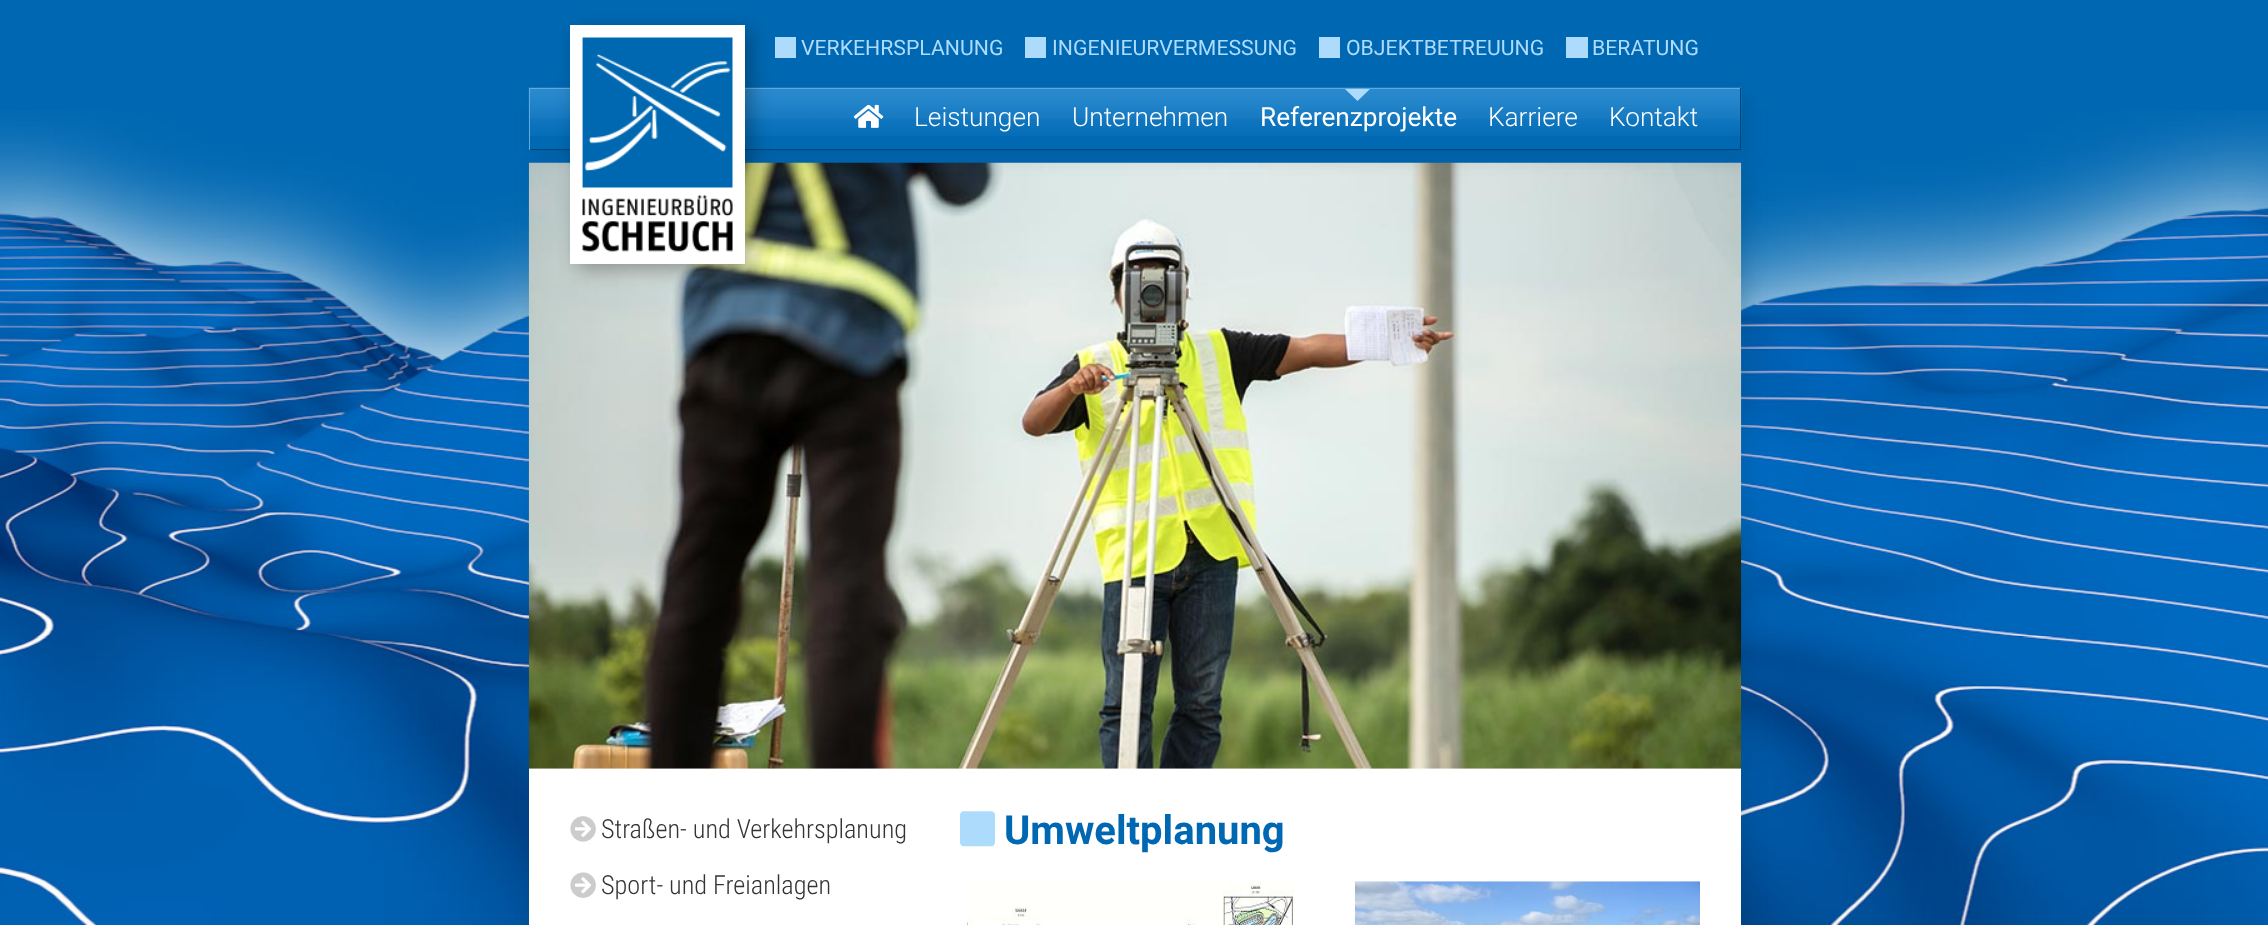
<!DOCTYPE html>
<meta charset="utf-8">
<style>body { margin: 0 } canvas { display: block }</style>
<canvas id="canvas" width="2268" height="925"></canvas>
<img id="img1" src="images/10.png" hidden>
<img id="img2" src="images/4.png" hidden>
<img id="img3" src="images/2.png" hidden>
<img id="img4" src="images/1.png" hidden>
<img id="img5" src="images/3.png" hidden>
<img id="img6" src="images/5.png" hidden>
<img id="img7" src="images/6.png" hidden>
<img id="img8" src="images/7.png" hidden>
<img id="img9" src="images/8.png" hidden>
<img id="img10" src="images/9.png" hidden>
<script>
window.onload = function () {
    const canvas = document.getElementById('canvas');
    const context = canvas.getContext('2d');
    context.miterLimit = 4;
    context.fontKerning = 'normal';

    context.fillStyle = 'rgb(0, 104, 178)';
    context.fillRect(0, 0, 2268, 925);
    context.fillStyle = 'rgb(173, 219, 252)';
    context.fillRect(775, 37, 21, 21);
    context.drawImage(document.getElementById('img1'), 0, 110, 2268, 815);
    context.fillStyle = 'rgba(0, 60, 102, 0.2)';
    context.filter = 'blur(9.5px)';
    context.beginPath();
    context.rect(535, 169, 1213, 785);
    context.fill();
    context.filter = 'none';
    context.fillStyle = 'rgb(255, 255, 255)';
    context.fillRect(529, 768, 1212, 157);
    context.drawImage(document.getElementById('img2'), 528, 162, 1214, 607);
    context.fillStyle = 'rgba(0, 60, 102, 0.2)';
    context.filter = 'blur(9.5px)';
    context.beginPath();
    context.rect(535, 94, 1213, 62);
    context.fill();
    context.filter = 'none';
    context.fillStyle = 'rgb(1, 105, 179)';
    context.fillRect(530, 136, 1210, 13);
    context.drawImage(document.getElementById('img3'), 528, 87, 1214, 49);
    context.fillStyle = 'rgb(99, 170, 220)';
    context.fillRect(529, 88, 1212, 1);
    context.fillStyle = 'rgb(0, 69, 119)';
    context.fillRect(1740, 88, 1, 62);
    context.fillRect(529, 149, 1212, 1);
    context.fillStyle = 'rgba(0, 0, 0, 0.3)';
    context.filter = 'blur(9.5px)';
    context.beginPath();
    context.rect(576, 31, 175, 239);
    context.fill();
    context.filter = 'none';
    context.fillStyle = 'rgb(255, 255, 255)';
    context.fillRect(570, 25, 175, 239);
    context.drawImage(document.getElementById('img4'), 582, 37, 151, 215);
    context.fillStyle = 'rgb(173, 219, 252)';
    context.fillRect(1025, 37, 21, 21);
    context.fillRect(1319, 37, 21, 21);
    context.fillRect(1566, 37, 22, 21);
    context.fillStyle = 'rgb(99, 170, 220)';
    context.fillRect(529, 88, 1, 62);
    context.drawImage(document.getElementById('img5'), 853, 104, 31, 24);
    context.fillStyle = 'rgb(173, 219, 252)';
    context.beginPath();
    context.moveTo(1345, 89);
    context.lineTo(1370, 89);
    context.lineTo(1357.5, 101);
    context.closePath();
    context.fill();
    context.drawImage(document.getElementById('img6'), 570, 816, 26, 26);
    context.drawImage(document.getElementById('img7'), 570, 872, 26, 26);
    context.drawImage(document.getElementById('img8'), 960, 811, 35, 36);
    context.drawImage(document.getElementById('img9'), 966, 881, 328, 44);
    context.drawImage(document.getElementById('img10'), 1355, 881, 345, 44);
    context.font = '21.25px Roboto';
    context.fillText('VERKEHRSPLANUNG', 801, 55);
    context.fillText('INGENIEURVERMESSUNG', 1052, 55);
    context.fillText('OBJEKTBETREUUNG', 1346, 55);
    context.fillText('BERATUNG', 1592, 55);
    context.font = '300 26.25px Roboto';
    context.fillStyle = 'rgb(255, 255, 255)';
    context.fillText('Leistungen', 914, 126);
    context.fillText('Unternehmen', 1072, 126);
    context.font = '26.25px Roboto';
    context.fillText('Referenzprojekte', 1260, 126);
    context.font = '300 26.25px Roboto';
    context.fillText('Karriere', 1488, 126);
    context.fillText('Kontakt', 1609, 126);
    context.font = '300 26.25px Roboto Condensed';
    context.fillStyle = 'rgb(51, 51, 51)';
    context.fillText('Straßen- und Verkehrsplanung', 601, 838);
    context.fillText('Sport- und Freianlagen', 601, 894);
    context.font = 'bold 40px Roboto';
    context.fillStyle = 'rgb(0, 104, 178)';
    context.fillText('Umweltplanung', 1004, 844);
};
</script>
